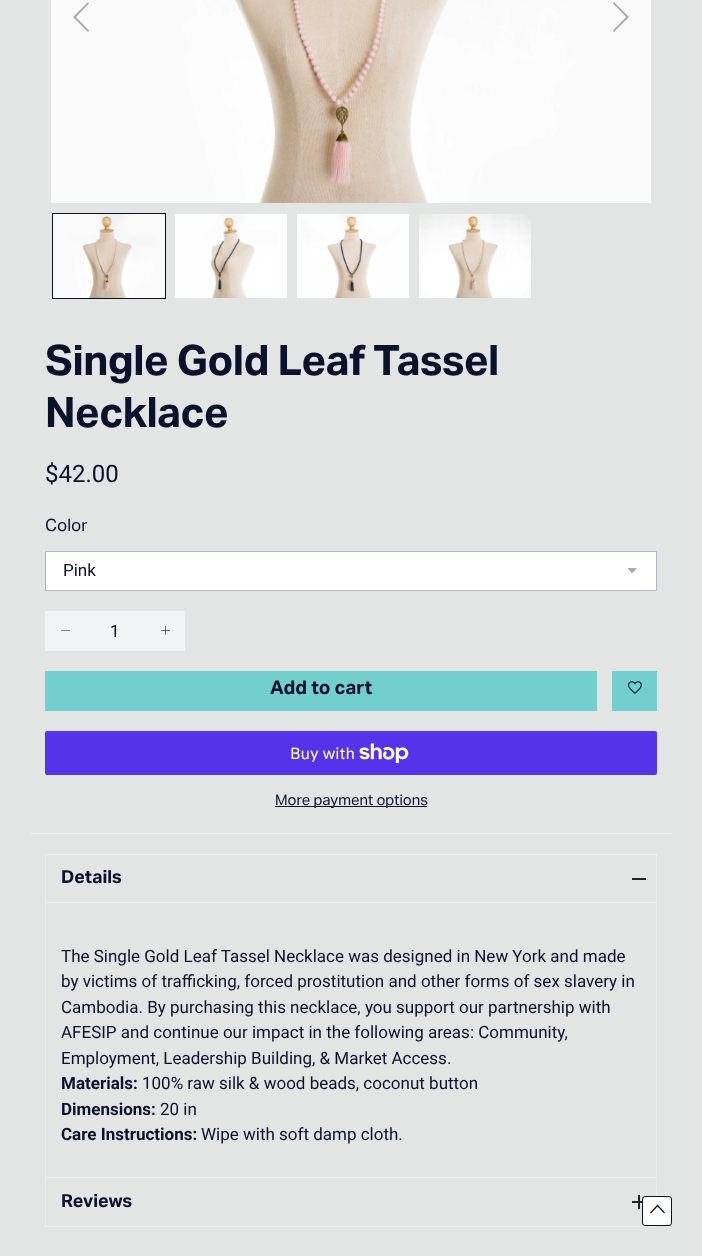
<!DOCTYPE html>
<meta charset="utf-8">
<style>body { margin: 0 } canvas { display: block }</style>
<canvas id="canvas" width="702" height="1256"></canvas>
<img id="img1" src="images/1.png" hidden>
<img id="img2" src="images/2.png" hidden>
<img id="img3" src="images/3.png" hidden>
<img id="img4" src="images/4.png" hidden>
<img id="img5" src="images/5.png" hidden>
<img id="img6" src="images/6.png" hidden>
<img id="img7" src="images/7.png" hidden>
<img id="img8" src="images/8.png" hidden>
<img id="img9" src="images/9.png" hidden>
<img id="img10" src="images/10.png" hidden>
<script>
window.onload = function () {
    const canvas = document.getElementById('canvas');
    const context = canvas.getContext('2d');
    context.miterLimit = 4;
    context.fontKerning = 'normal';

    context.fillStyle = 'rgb(227, 228, 228)';
    context.fillRect(0, 0, 702, 1256);
    context.drawImage(document.getElementById('img1'), 51, 0, 600, 203);
    context.fillStyle = 'rgb(171, 171, 171)';
    context.beginPath();
    context.moveTo(76, 17);
    context.lineTo(89, 30.5);
    context.lineTo(88, 32);
    context.lineTo(73, 17);
    context.lineTo(88, 2);
    context.lineTo(89, 3.5);
    context.closePath();
    context.fill();
    context.beginPath();
    context.moveTo(629, 17);
    context.lineTo(614, 32);
    context.lineTo(613, 30.5);
    context.lineTo(626, 17);
    context.lineTo(613, 3.5);
    context.lineTo(614, 2);
    context.closePath();
    context.fill();
    context.strokeStyle = 'rgb(9, 17, 45)';
    context.strokeRect(52.5, 213.5, 113, 85);
    context.drawImage(document.getElementById('img2'), 53, 214, 112, 84);
    context.drawImage(document.getElementById('img3'), 175, 214, 112, 84);
    context.drawImage(document.getElementById('img4'), 297, 214, 112, 84);
    context.drawImage(document.getElementById('img5'), 419, 214, 112, 84);
    context.fillStyle = 'rgb(255, 255, 255)';
    context.fillRect(46, 552, 610, 38);
    context.drawImage(document.getElementById('img6'), 627, 568, 10, 5);
    context.strokeStyle = 'rgb(176, 186, 201)';
    context.strokeRect(45.5, 551.5, 611, 39);
    context.fillStyle = 'rgb(241, 244, 244)';
    context.fillRect(45, 611, 140, 40);
    context.fillStyle = 'rgb(9, 17, 45)';
    context.beginPath();
    context.moveTo(70, 630.5);
    context.lineTo(61, 630.5);
    context.lineTo(61, 630);
    context.lineTo(70, 630);
    context.closePath();
    context.fill();
    context.drawImage(document.getElementById('img7'), 161, 625, 9, 10);
    context.fillStyle = 'rgb(114, 207, 205)';
    context.fillRect(45, 671, 552, 40);
    context.fillRect(612, 671, 45, 40);
    context.drawImage(document.getElementById('img8'), 628, 681, 14, 13);
    context.fillStyle = 'rgb(84, 51, 235)';
    context.beginPath();
    context.roundRect(45, 731, 612, 44, 2);
    context.fill();
    context.drawImage(document.getElementById('img9'), 359, 743, 50, 20);
    context.fillStyle = 'rgb(9, 17, 45)';
    context.fillRect(275, 806, 152, 1);
    context.fillStyle = 'rgb(238, 238, 238)';
    context.fillRect(30, 833, 642, 1);
    context.strokeStyle = 'rgb(238, 238, 238)';
    context.strokeRect(45.5, 854.5, 611, 48);
    context.fillStyle = 'rgb(34, 34, 34)';
    context.fillRect(632, 878, 14, 2);
    context.fillStyle = 'rgb(238, 238, 238)';
    context.fillRect(656, 903, 1, 275);
    context.fillRect(45, 1177, 612, 1);
    context.fillRect(45, 903, 1, 275);
    context.beginPath();
    context.moveTo(657, 1178);
    context.lineTo(657, 1227);
    context.lineTo(656, 1226);
    context.lineTo(656, 1179);
    context.closePath();
    context.fill();
    context.fillRect(45, 1226, 612, 1);
    context.beginPath();
    context.moveTo(45, 1227);
    context.lineTo(45, 1178);
    context.lineTo(46, 1179);
    context.lineTo(46, 1226);
    context.closePath();
    context.fill();
    context.fillStyle = 'rgb(34, 34, 34)';
    context.fillRect(638, 1195, 2, 14);
    context.fillRect(632, 1201, 14, 2);
    context.fillStyle = 'rgb(255, 255, 255)';
    context.beginPath();
    context.roundRect(642.5, 1196.5, 29, 29, 2.5);
    context.fill();
    context.strokeStyle = 'rgb(9, 17, 45)';
    context.stroke();
    context.drawImage(document.getElementById('img10'), 650, 1204, 15, 10);
    context.letterSpacing = '-0.5px';
    context.font = 'bold 42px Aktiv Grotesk';
    context.fillStyle = 'rgb(9, 17, 45)';
    context.fillText('Single Gold Leaf Tassel', 45, 375);
    context.fillText('Necklace', 45, 427);
    context.letterSpacing = '0px';
    context.font = '24px Roboto';
    context.fillText('$42.00', 45, 482);
    context.font = '17px Aktiv Grotesk';
    context.fillText('Color', 45, 531);
    context.font = '17px Roboto';
    context.fillText('Pink', 63, 576);
    context.fillText('1', 110, 637);
    context.font = 'bold 19px Aktiv Grotesk';
    context.fillText('Add to cart', 270, 694);
    context.font = '16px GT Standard';
    context.fillStyle = 'rgb(255, 255, 255)';
    context.fillText('Buy with', 290, 759);
    context.font = '14.9px Aktiv Grotesk';
    context.fillStyle = 'rgb(9, 17, 45)';
    context.fillText('More payment options', 275, 805);
    context.font = 'bold 18px Aktiv Grotesk';
    context.fillText('Details', 61, 883);
    context.font = '17px Roboto';
    context.fillText('The Single Gold Leaf Tassel Necklace was designed in New York and made', 61, 962);
    context.fillText('by victims of trafficking, forced prostitution and other forms of sex slavery in', 61, 987);
    context.fillText('Cambodia. By purchasing this necklace, you support our partnership with', 61, 1013);
    context.fillText('AFESIP and continue our impact in the following areas: Community,', 61, 1038);
    context.fillText('Employment, Leadership Building, & Market Access.', 61, 1064);
    context.font = 'bold 17px Roboto';
    context.fillText('Materials:', 61, 1089);
    context.font = '17px Roboto';
    context.fillText('100% raw silk & wood beads, coconut button', 142, 1089);
    context.font = 'bold 17px Roboto';
    context.fillText('Dimensions:', 61, 1115);
    context.font = '17px Roboto';
    context.fillText('20 in', 160, 1115);
    context.font = 'bold 17px Roboto';
    context.fillText('Care Instructions:', 61, 1140);
    context.font = '17px Roboto';
    context.fillText('Wipe with soft damp cloth.', 201, 1140);
    context.font = 'bold 18px Aktiv Grotesk';
    context.fillText('Reviews', 61, 1207);
};
</script>
